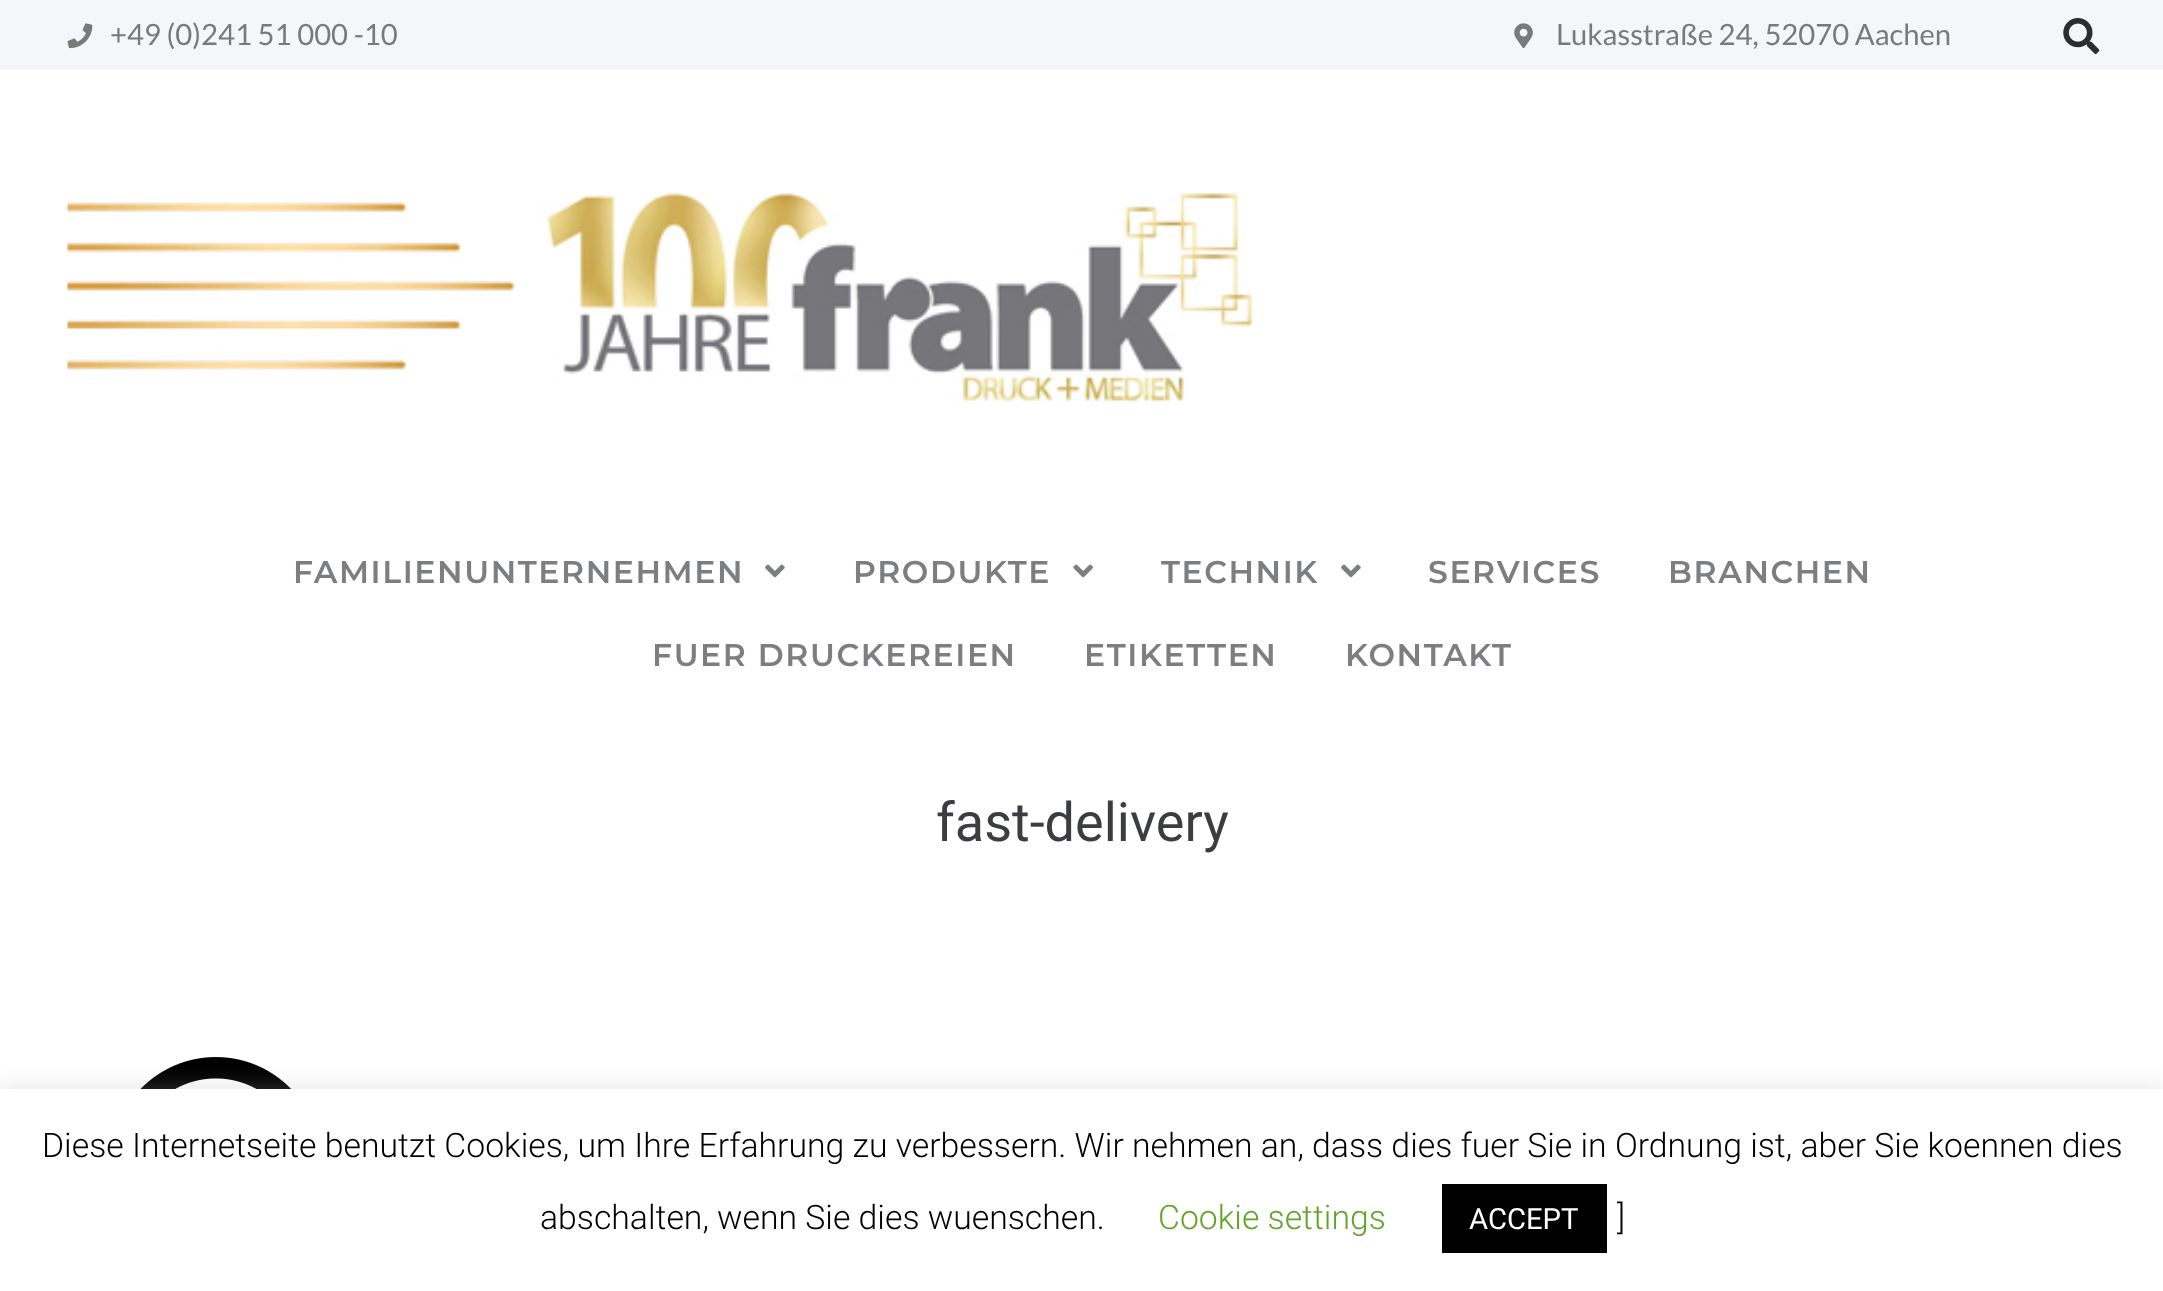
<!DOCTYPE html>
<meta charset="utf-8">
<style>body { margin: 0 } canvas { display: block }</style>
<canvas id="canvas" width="2163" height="1291"></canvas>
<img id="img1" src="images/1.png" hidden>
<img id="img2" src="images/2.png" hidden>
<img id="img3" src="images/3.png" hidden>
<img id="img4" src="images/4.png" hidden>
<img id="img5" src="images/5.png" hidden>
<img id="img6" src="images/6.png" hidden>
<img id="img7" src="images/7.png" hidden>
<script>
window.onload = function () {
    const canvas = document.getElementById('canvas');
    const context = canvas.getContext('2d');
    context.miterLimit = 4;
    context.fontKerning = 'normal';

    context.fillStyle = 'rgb(255, 255, 255)';
    context.fillRect(0, 0, 2163, 1291);
    context.fillStyle = 'rgb(245, 246, 249)';
    context.fillRect(0, 0, 2163, 70);
    context.drawImage(document.getElementById('img1'), 67, 23, 26, 26);
    context.drawImage(document.getElementById('img2'), 1514, 23, 19, 26);
    context.drawImage(document.getElementById('img3'), 2063, 18, 37, 36);
    context.drawImage(document.getElementById('img4'), 67, 193, 1187, 209);
    context.drawImage(document.getElementById('img5'), 765, 564, 20, 14);
    context.drawImage(document.getElementById('img6'), 1073, 564, 20, 14);
    context.drawImage(document.getElementById('img5'), 1341, 564, 20, 14);
    context.drawImage(document.getElementById('img7'), 140, 1057, 151, 32);
    context.fillStyle = 'rgba(172, 171, 171, 0.3)';
    context.filter = 'blur(11px)';
    context.beginPath();
    context.rect(0, 1087, 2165, 202);
    context.fill();
    context.filter = 'none';
    context.fillStyle = 'rgb(255, 255, 255)';
    context.fillRect(0, 1089, 2163, 202);
    context.fillStyle = 'rgb(0, 0, 0)';
    context.fillRect(1442, 1184, 165, 69);
    context.font = '29.25px Lato';
    context.fillStyle = 'rgb(122, 122, 122)';
    context.fillText('+49 (0)241 51 000 -10', 110, 45);
    context.fillText('Lukasstraße 24, 52070 Aachen', 1556, 45);
    context.letterSpacing = '1.6px';
    context.font = '600 31.5px Montserrat';
    context.fillStyle = 'rgb(125, 126, 129)';
    context.fillText('FAMILIENUNTERNEHMEN', 293, 583);
    context.fillText('PRODUKTE', 853, 583);
    context.fillText('TECHNIK', 1161, 583);
    context.fillText('SERVICES', 1428, 583);
    context.fillText('BRANCHEN', 1668, 583);
    context.fillText('FUER DRUCKEREIEN', 652, 666);
    context.fillText('ETIKETTEN', 1084, 666);
    context.fillText('KONTAKT', 1345, 666);
    context.letterSpacing = '0px';
    context.font = '54px Roboto';
    context.fillStyle = 'rgb(59, 61, 66)';
    context.fillText('fast-delivery', 936, 841);
    context.font = '300 33.75px Roboto';
    context.fillStyle = 'rgb(0, 0, 0)';
    context.fillText('Diese Internetseite benutzt Cookies, um Ihre Erfahrung zu verbessern. Wir nehmen an, dass dies fuer Sie in Ordnung ist, aber Sie koennen dies', 42, 1157);
    context.fillText('abschalten, wenn Sie dies wuenschen.', 540, 1229);
    context.fillStyle = 'rgb(98, 163, 41)';
    context.fillText('Cookie settings', 1158, 1229);
    context.font = '29.25px Roboto';
    context.fillStyle = 'rgb(255, 255, 255)';
    context.fillText('ACCEPT', 1469, 1229);
    context.font = '300 33.75px Roboto';
    context.fillStyle = 'rgb(0, 0, 0)';
    context.fillText(']', 1617, 1229);
};
</script>
